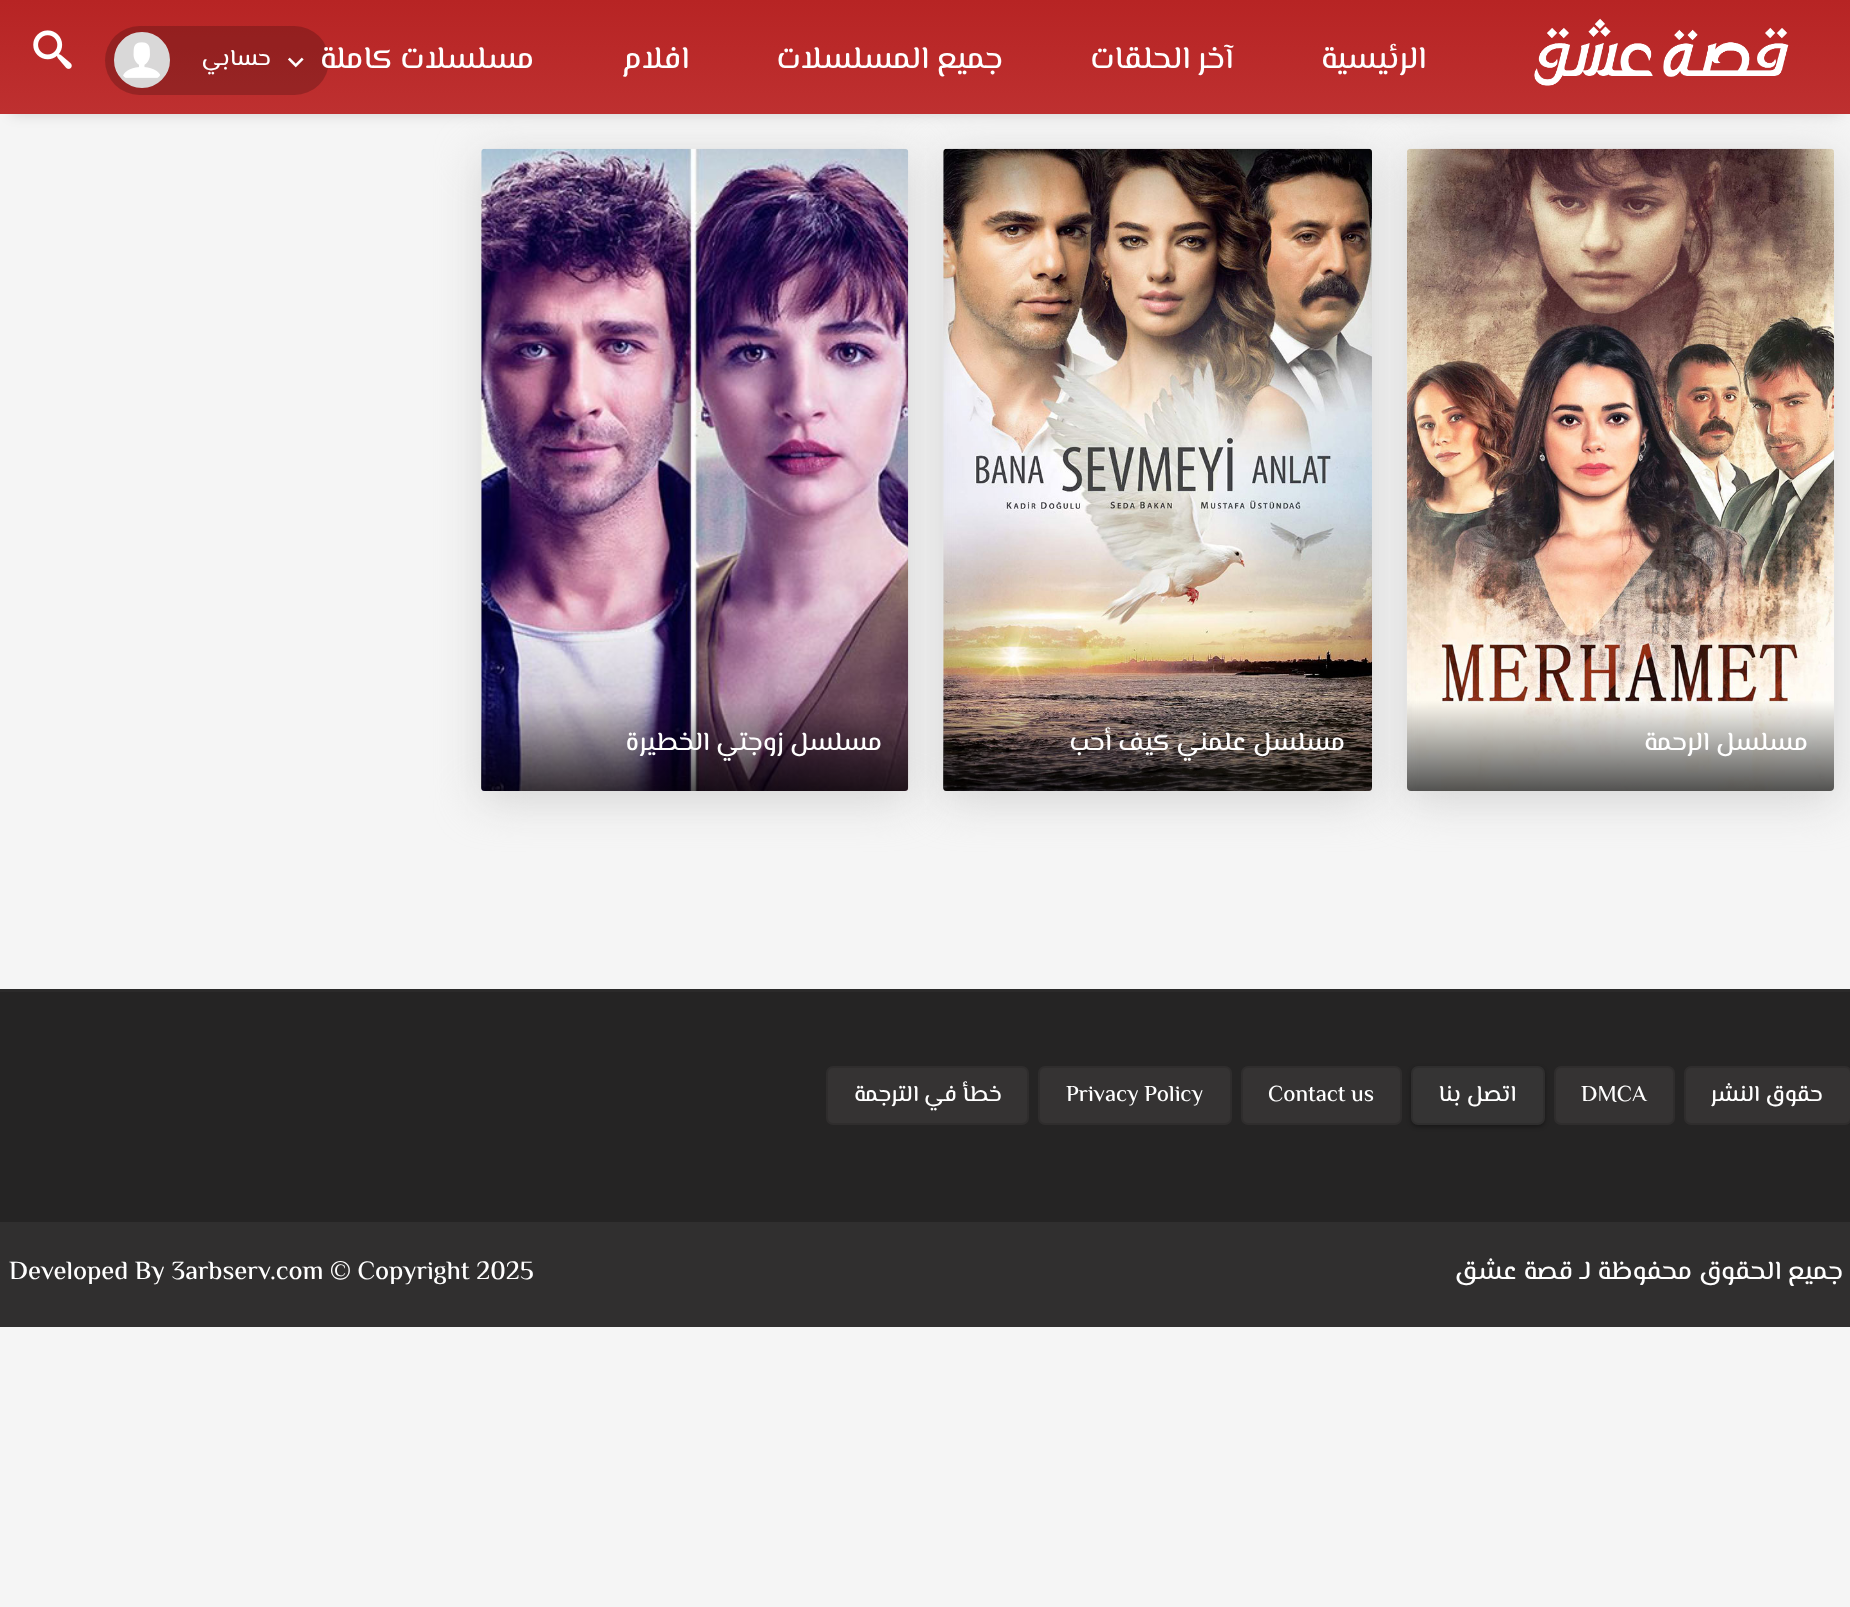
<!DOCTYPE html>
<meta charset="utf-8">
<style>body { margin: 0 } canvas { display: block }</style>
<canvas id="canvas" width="1850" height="1607"></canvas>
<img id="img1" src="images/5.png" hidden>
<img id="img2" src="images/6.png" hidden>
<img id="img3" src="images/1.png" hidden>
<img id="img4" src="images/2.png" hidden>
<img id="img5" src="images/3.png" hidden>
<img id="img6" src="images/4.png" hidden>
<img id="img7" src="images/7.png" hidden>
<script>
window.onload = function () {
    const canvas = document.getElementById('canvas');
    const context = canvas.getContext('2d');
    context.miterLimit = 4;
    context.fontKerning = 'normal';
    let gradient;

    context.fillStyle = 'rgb(245, 245, 245)';
    context.fillRect(0, 0, 1850, 1607);
    context.fillStyle = 'rgba(0, 0, 0, 0.15)';
    context.filter = 'blur(7px)';
    context.beginPath();
    context.rect(11, 21, 1830, 93);
    context.fill();
    context.filter = 'none';
    context.fillStyle = 'rgb(212, 212, 212)';
    context.filter = 'blur(22px)';
    context.beginPath();
    context.roundRect(1407, 158, 427, 642, 4);
    context.fill();
    context.filter = 'none';
    context.drawImage(document.getElementById('img1'), 1407, 148, 427, 643);
    gradient = context.createLinearGradient(1621, 791, 1621, 700);
    gradient.addColorStop(0, 'rgba(0, 0, 0, 0.68)');
    gradient.addColorStop(1, 'rgba(0, 0, 0, 0)');
    context.fillStyle = gradient;
    context.beginPath();
    context.roundRect(1407, 700, 427, 91, [0, 0, 4, 4]);
    context.fill();
    context.fillStyle = 'rgb(212, 212, 212)';
    context.filter = 'blur(22px)';
    context.beginPath();
    context.roundRect(943, 158, 429, 642, 4);
    context.fill();
    context.filter = 'none';
    context.drawImage(document.getElementById('img2'), 943, 148, 429, 643);
    gradient = context.createLinearGradient(1158, 791, 1158, 700);
    gradient.addColorStop(0, 'rgba(0, 0, 0, 0.68)');
    gradient.addColorStop(1, 'rgba(0, 0, 0, 0)');
    context.fillStyle = gradient;
    context.beginPath();
    context.roundRect(943, 700, 429, 91, [0, 0, 4, 4]);
    context.fill();
    context.fillStyle = 'rgb(212, 212, 212)';
    context.filter = 'blur(22px)';
    context.beginPath();
    context.roundRect(481, 158, 427, 642, 4);
    context.fill();
    context.filter = 'none';
    gradient = context.createLinearGradient(926, 0, 926, 114);
    gradient.addColorStop(0, 'rgb(183, 36, 36)');
    gradient.addColorStop(1, 'rgb(190, 48, 48)');
    context.fillStyle = gradient;
    context.fillRect(0, 0, 1850, 114);
    context.drawImage(document.getElementById('img3'), 1534, 18, 255, 68);
    context.fillStyle = 'rgba(0, 0, 0, 0.2)';
    context.beginPath();
    context.roundRect(105, 26, 224, 69, 34.5);
    context.fill();
    context.drawImage(document.getElementById('img4'), 288, 57, 16, 11);
    context.fillStyle = 'rgb(217, 216, 216)';
    context.beginPath();
    context.arc(142, 60, 26, 0, 2 * Math.PI);
    context.fill();
    context.strokeStyle = 'rgb(217, 216, 216)';
    context.lineWidth = 4;
    context.stroke();
    context.drawImage(document.getElementById('img5'), 123, 42, 37, 36);
    context.drawImage(document.getElementById('img6'), 33, 30, 39, 39);
    context.drawImage(document.getElementById('img7'), 481, 148, 428, 643);
    gradient = context.createLinearGradient(695, 791, 695, 700);
    gradient.addColorStop(0, 'rgba(0, 0, 0, 0.68)');
    gradient.addColorStop(1, 'rgba(0, 0, 0, 0)');
    context.fillStyle = gradient;
    context.beginPath();
    context.roundRect(481, 700, 427, 91, [0, 0, 4, 4]);
    context.fill();
    context.fillStyle = 'rgb(48, 47, 47)';
    context.fillRect(0, 1222, 1850, 105);
    context.fillStyle = 'rgb(43, 42, 42)';
    context.fillRect(0, 989, 1850, 3);
    context.fillStyle = 'rgb(37, 36, 36)';
    context.fillRect(0, 992, 1850, 230);
    context.fillStyle = 'rgba(103, 102, 102, 0.24)';
    context.beginPath();
    context.roundRect(1684, 1066, 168, 59, 7);
    context.fill();
    context.beginPath();
    context.roundRect(1685, 1067, 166, 57, 6);
    context.strokeStyle = 'rgba(0, 0, 0, 0.1)';
    context.lineWidth = 2;
    context.stroke();
    context.beginPath();
    context.roundRect(1554, 1066, 121, 59, 7);
    context.fill();
    context.beginPath();
    context.roundRect(1555, 1067, 119, 57, 6);
    context.stroke();
    context.fillStyle = 'rgba(0, 0, 0, 0.34)';
    context.filter = 'blur(2px)';
    context.beginPath();
    context.roundRect(1411, 1068, 134, 59, 7);
    context.fill();
    context.filter = 'none';
    context.fillStyle = 'rgb(53, 52, 52)';
    context.beginPath();
    context.roundRect(1411, 1066, 134, 59, 7);
    context.fill();
    context.beginPath();
    context.roundRect(1412, 1067, 132, 57, 6);
    context.stroke();
    context.fillStyle = 'rgba(103, 102, 102, 0.24)';
    context.beginPath();
    context.roundRect(1241, 1066, 161, 59, 7);
    context.fill();
    context.beginPath();
    context.roundRect(1242, 1067, 159, 57, 6);
    context.stroke();
    context.beginPath();
    context.roundRect(1038, 1066, 194, 59, 7);
    context.fill();
    context.beginPath();
    context.roundRect(1039, 1067, 192, 57, 6);
    context.stroke();
    context.beginPath();
    context.roundRect(826, 1066, 203, 59, 7);
    context.fill();
    context.beginPath();
    context.roundRect(827, 1067, 201, 57, 6);
    context.stroke();
    context.direction = 'rtl';
    context.font = '500 31.5px El Messiri';
    context.fillStyle = 'rgb(255, 255, 255)';
    context.fillText('الرئيسية', 1426, 68);
    context.fillText('آخر الحلقات', 1233, 68);
    context.fillText('جميع المسلسلات', 1003, 68);
    context.fillText('افلام', 689, 68);
    context.fillText('مسلسلات كاملة', 534, 68);
    context.font = '500 22.75px El Messiri';
    context.fillText('حسابي', 271, 65);
    context.font = '500 26.25px El Messiri';
    context.fillText('مسلسل الرحمة', 1808, 750);
    context.fillText('مسلسل علمني كيف أحب', 1345, 750);
    context.fillText('مسلسل زوجتي الخطيرة', 882, 750);
    context.font = '500 22.75px El Messiri';
    context.fillText('حقوق النشر', 1823, 1101);
    context.direction = 'ltr';
    context.fillText('DMCA', 1581, 1101);
    context.direction = 'rtl';
    context.fillText('اتصل بنا', 1516, 1101);
    context.direction = 'ltr';
    context.fillText('Contact us', 1268, 1101);
    context.fillText('Privacy Policy', 1066, 1101);
    context.direction = 'rtl';
    context.fillText('خطأ في الترجمة', 1002, 1101);
    context.font = '500 26.25px El Messiri';
    context.fillText('جميع الحقوق محفوظة لـ', 1843, 1279);
    context.fillText('قصة عشق', 1573, 1279);
    context.direction = 'ltr';
    context.fillText('Developed By 3arbserv.com © Copyright 2025', 9, 1279);
};
</script>
